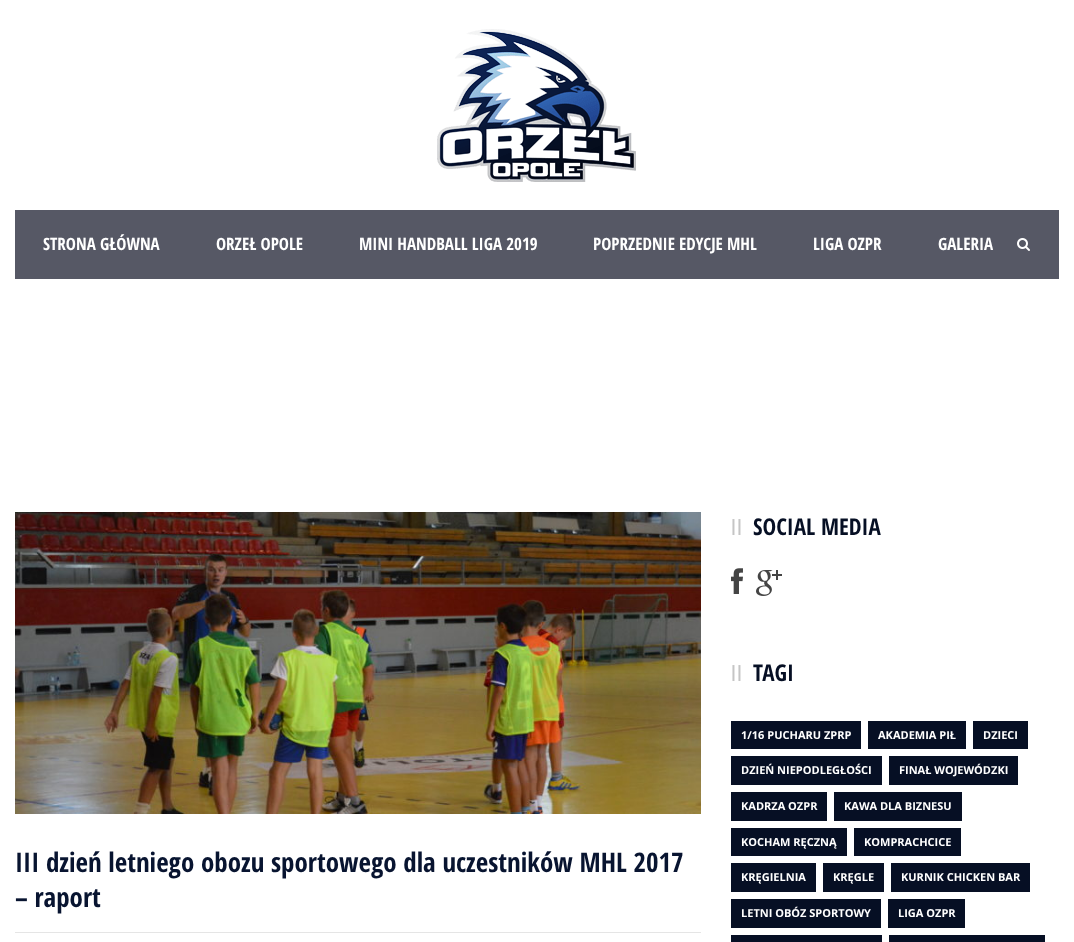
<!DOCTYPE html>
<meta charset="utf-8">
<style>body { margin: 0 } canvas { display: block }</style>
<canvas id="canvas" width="1074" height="942"></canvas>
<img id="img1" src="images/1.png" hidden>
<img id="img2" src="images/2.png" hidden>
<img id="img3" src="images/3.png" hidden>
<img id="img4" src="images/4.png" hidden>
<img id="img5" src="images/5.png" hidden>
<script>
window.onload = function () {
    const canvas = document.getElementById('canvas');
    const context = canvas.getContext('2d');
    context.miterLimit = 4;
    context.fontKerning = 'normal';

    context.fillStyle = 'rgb(255, 255, 255)';
    context.fillRect(0, 0, 1074, 942);
    context.drawImage(document.getElementById('img1'), 437, 29, 199, 153);
    context.fillStyle = 'rgb(86, 88, 101)';
    context.fillRect(15, 210, 1044, 69);
    context.drawImage(document.getElementById('img2'), 1017, 238, 13, 13);
    context.drawImage(document.getElementById('img3'), 15, 512, 686, 302);
    context.fillStyle = 'rgb(229, 229, 229)';
    context.fillRect(15, 932, 686, 1);
    context.drawImage(document.getElementById('img4'), 731, 568, 12, 26);
    context.drawImage(document.getElementById('img5'), 756, 570, 26, 26);
    context.fillStyle = 'rgb(6, 15, 36)';
    context.fillRect(731, 721, 130, 28);
    context.fillRect(868, 721, 98, 28);
    context.fillRect(973, 721, 55, 28);
    context.fillRect(731, 756, 151, 29);
    context.fillRect(889, 756, 129, 29);
    context.fillRect(731, 792, 96, 29);
    context.fillRect(834, 792, 128, 29);
    context.fillRect(731, 828, 116, 28);
    context.fillRect(854, 828, 107, 28);
    context.fillRect(731, 863, 85, 29);
    context.fillRect(823, 863, 61, 29);
    context.fillRect(891, 863, 139, 29);
    context.fillRect(731, 899, 150, 29);
    context.fillRect(888, 899, 77, 29);
    context.fillRect(731, 935, 151, 7);
    context.fillRect(889, 935, 156, 7);
    context.font = 'bold 17px Open Sans Condensed';
    context.fillStyle = 'rgb(255, 255, 255)';
    context.fillText('STRONA GŁÓWNA', 43, 250);
    context.fillText('ORZEŁ OPOLE', 216, 250);
    context.fillText('MINI HANDBALL LIGA 2019', 359, 250);
    context.fillText('POPRZEDNIE EDYCJE MHL', 593, 250);
    context.fillText('LIGA OZPR', 813, 250);
    context.fillText('GALERIA', 938, 250);
    context.font = 'bold 27px Open Sans Condensed';
    context.fillStyle = 'rgb(8, 20, 48)';
    context.fillText('III dzień letniego obozu sportowego dla uczestników MHL 2017', 15, 872);
    context.fillText('– raport', 15, 907);
    context.letterSpacing = '1px';
    context.font = '22px Liberation Sans';
    context.fillStyle = 'rgb(197, 197, 197)';
    context.fillText('ll', 731, 535);
    context.letterSpacing = '0px';
    context.font = 'bold 23px Open Sans Condensed';
    context.fillStyle = 'rgb(6, 15, 36)';
    context.fillText('SOCIAL MEDIA', 753, 535);
    context.letterSpacing = '1px';
    context.font = '22px Liberation Sans';
    context.fillStyle = 'rgb(197, 197, 197)';
    context.fillText('ll', 731, 681);
    context.letterSpacing = '0px';
    context.font = 'bold 23px Open Sans Condensed';
    context.fillStyle = 'rgb(6, 15, 36)';
    context.fillText('TAGI', 753, 681);
    context.font = 'bold 11px Open Sans';
    context.fillStyle = 'rgb(255, 255, 255)';
    context.fillText('1/16 PUCHARU ZPRP', 741, 739);
    context.fillText('AKADEMIA PIŁ', 878, 739);
    context.fillText('DZIECI', 983, 739);
    context.fillText('DZIEŃ NIEPODLEGŁOŚCI', 741, 774);
    context.fillText('FINAŁ WOJEWÓDZKI', 899, 774);
    context.fillText('KADRZA OZPR', 741, 810);
    context.fillText('KAWA DLA BIZNESU', 844, 810);
    context.fillText('KOCHAM RĘCZNĄ', 741, 846);
    context.fillText('KOMPRACHCICE', 864, 846);
    context.fillText('KRĘGIELNIA', 741, 881);
    context.fillText('KRĘGLE', 833, 881);
    context.fillText('KURNIK CHICKEN BAR', 901, 881);
    context.fillText('LETNI OBÓZ SPORTOWY', 741, 917);
    context.fillText('LIGA OZPR', 898, 917);
};
</script>
